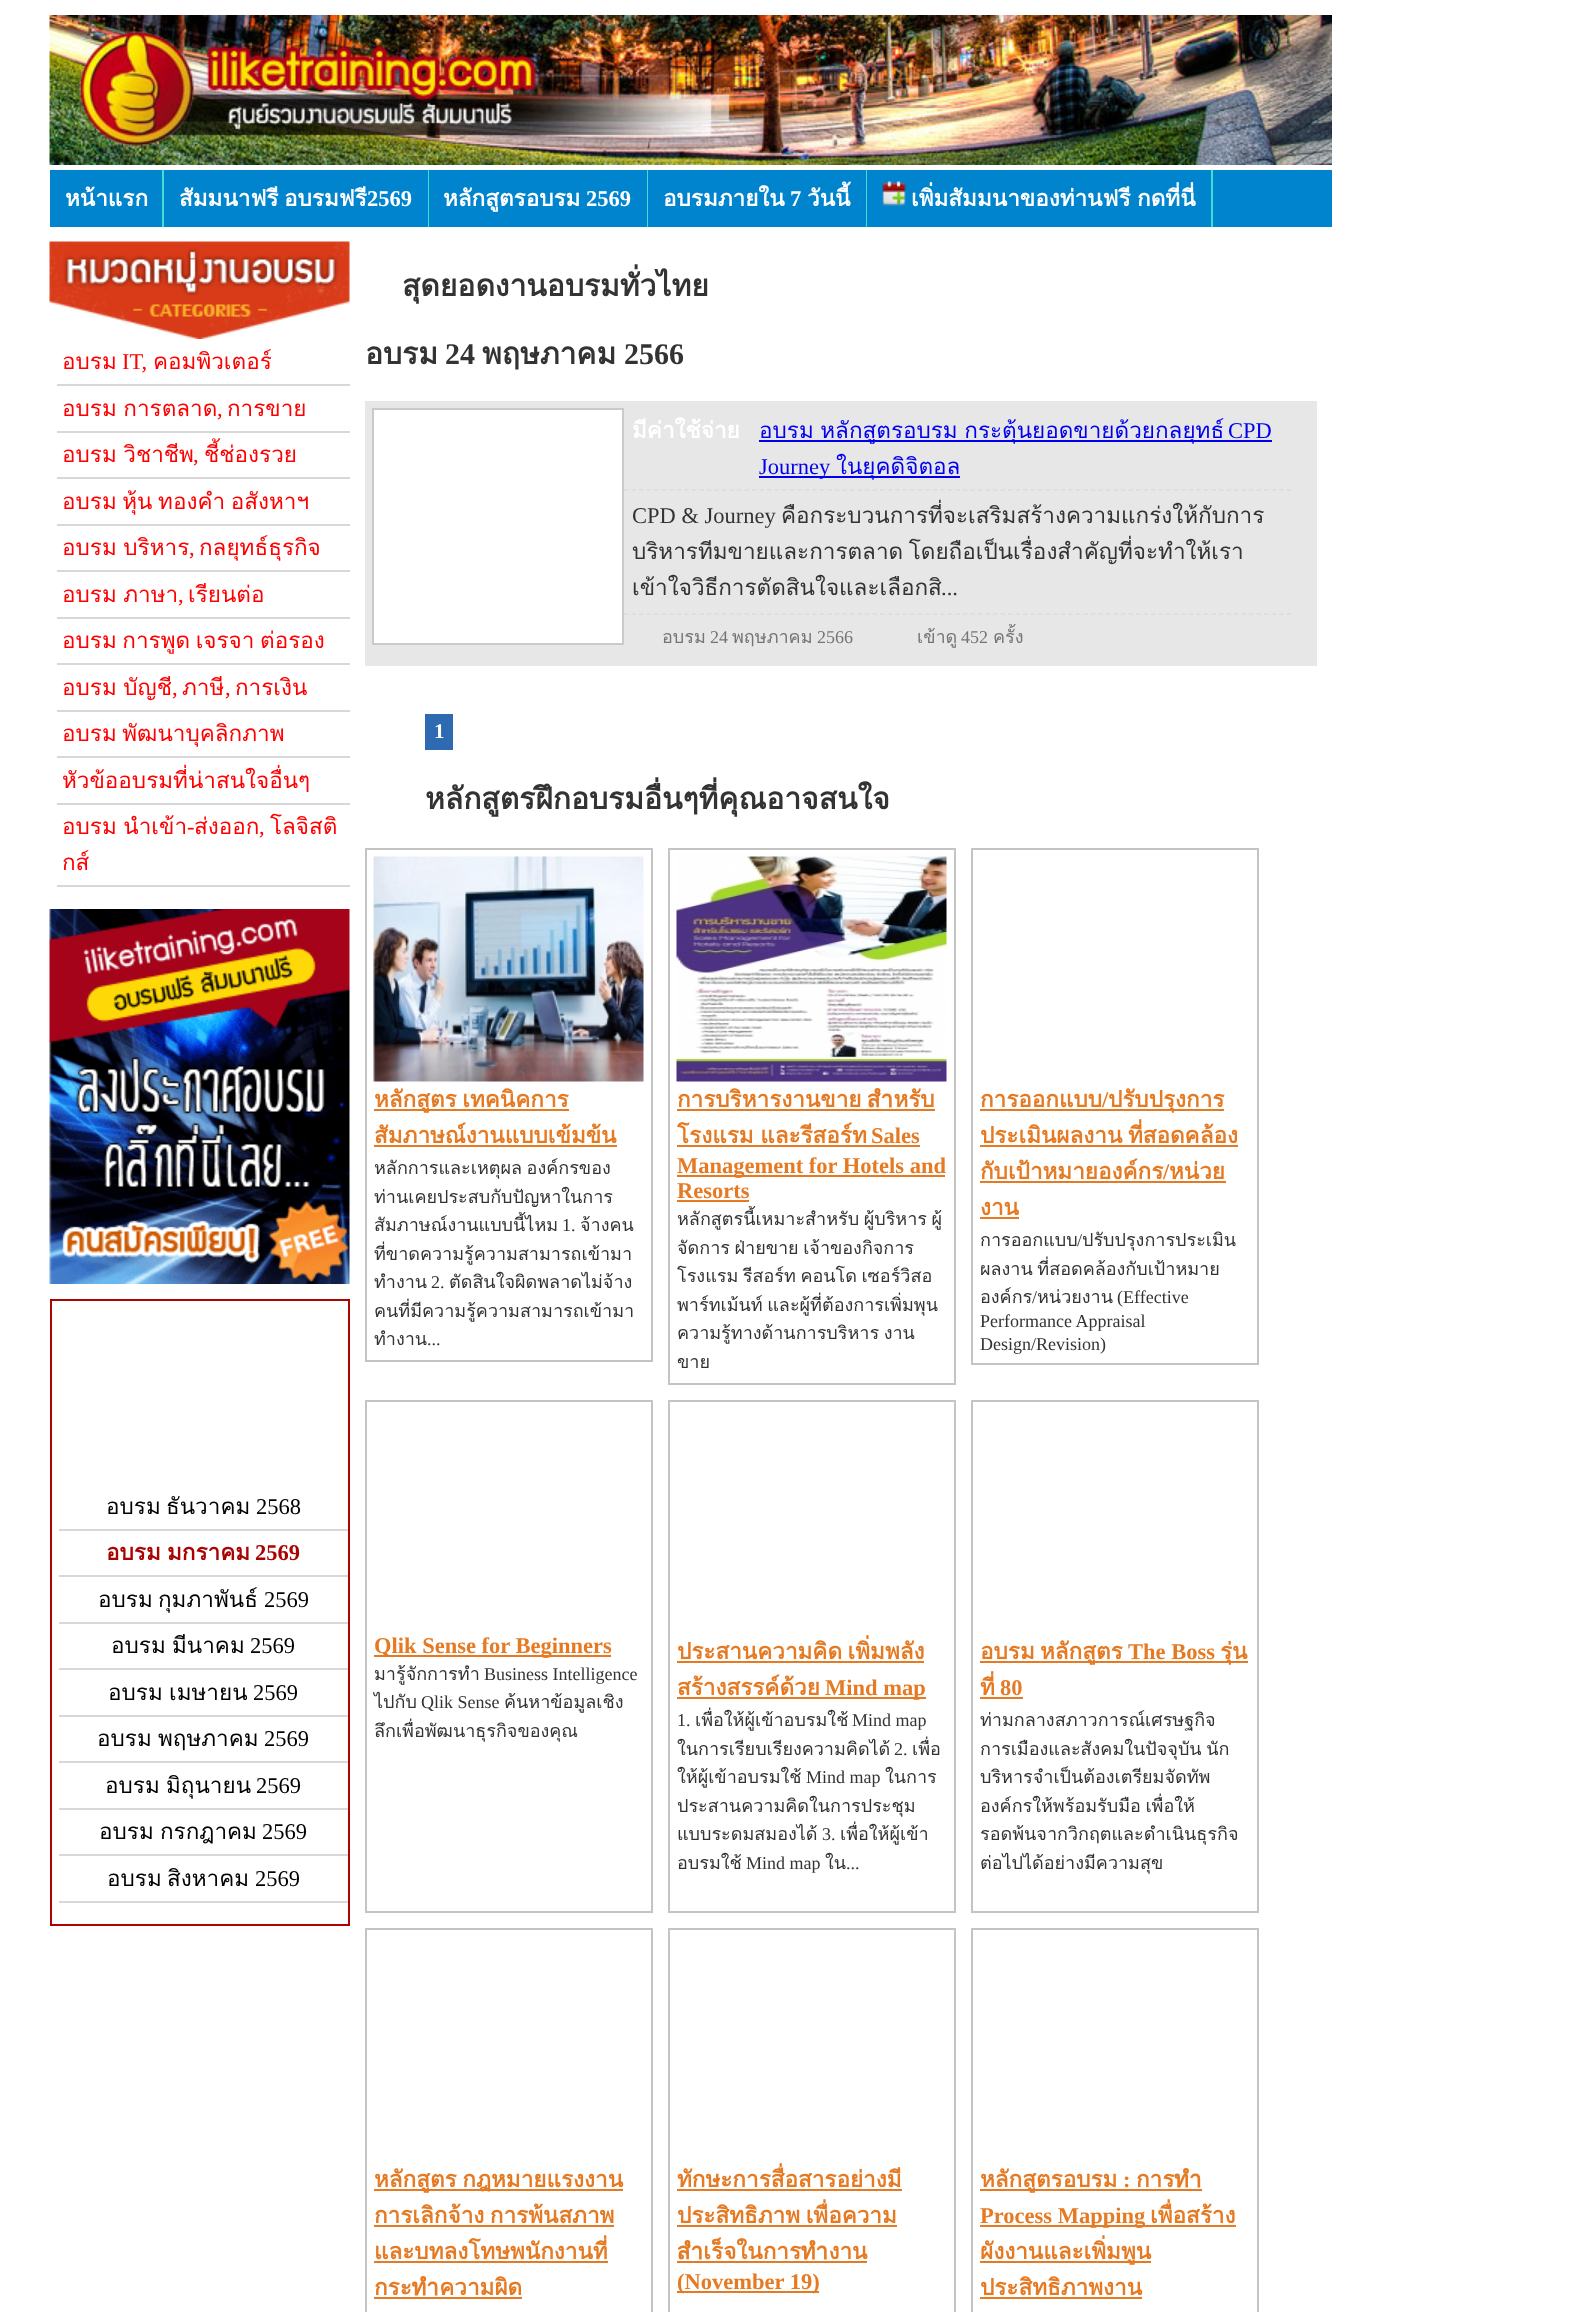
<!DOCTYPE html>
<meta charset="utf-8">
<style>body { margin: 0 } canvas { display: block }</style>
<canvas id="canvas" width="1586" height="2312"></canvas>
<img id="img1" src="images/1.png" hidden>
<img id="img2" src="images/2.png" hidden>
<img id="img3" src="images/3.png" hidden>
<img id="img4" src="images/4.png" hidden>
<img id="img5" src="images/5.png" hidden>
<img id="img6" src="images/6.png" hidden>
<script>
window.onload = function () {
    const canvas = document.getElementById('canvas');
    const context = canvas.getContext('2d');
    context.miterLimit = 4;
    context.fontKerning = 'normal';

    context.fillStyle = 'rgb(255, 255, 255)';
    context.fillRect(0, 0, 1586, 2312);
    context.drawImage(document.getElementById('img1'), 49, 15, 1283, 150);
    context.fillStyle = 'rgb(0, 132, 206)';
    context.fillRect(50, 170, 1282, 57);
    context.fillStyle = 'rgb(64, 224, 208)';
    context.fillRect(162, 170, 2, 57);
    context.fillRect(428, 170, 1, 57);
    context.fillRect(647, 170, 1, 57);
    context.fillRect(866, 170, 1, 57);
    context.fillRect(1211, 170, 2, 57);
    context.drawImage(document.getElementById('img2'), 882, 181, 24, 25);
    context.drawImage(document.getElementById('img3'), 49, 241, 301, 98);
    context.fillStyle = 'rgb(216, 216, 216)';
    context.fillRect(57, 384, 293, 2);
    context.fillRect(57, 431, 293, 2);
    context.fillRect(57, 477, 293, 2);
    context.fillRect(57, 524, 293, 2);
    context.fillRect(57, 570, 293, 2);
    context.fillRect(57, 617, 293, 2);
    context.fillRect(57, 663, 293, 2);
    context.fillRect(57, 710, 293, 2);
    context.fillRect(57, 756, 293, 2);
    context.fillRect(57, 803, 293, 2);
    context.fillRect(57, 885, 293, 2);
    context.drawImage(document.getElementById('img4'), 49, 909, 301, 375);
    context.strokeStyle = 'rgb(170, 3, 1)';
    context.lineWidth = 2;
    context.strokeRect(51, 1300, 298, 625);
    context.fillRect(59, 1529, 289, 2);
    context.fillRect(59, 1575, 289, 2);
    context.fillRect(59, 1622, 289, 2);
    context.fillRect(59, 1668, 289, 2);
    context.fillRect(59, 1715, 289, 2);
    context.fillRect(59, 1761, 289, 2);
    context.fillRect(59, 1808, 289, 2);
    context.fillRect(59, 1854, 289, 2);
    context.fillRect(59, 1901, 289, 2);
    context.fillStyle = 'rgb(231, 231, 231)';
    context.fillRect(365, 401, 952, 265);
    context.fillStyle = 'rgb(255, 255, 255)';
    context.beginPath();
    context.rect(373, 409, 250, 235);
    context.fill();
    context.strokeStyle = 'rgb(202, 202, 202)';
    context.stroke();
    context.fillStyle = 'rgb(0, 0, 238)';
    context.fillRect(759, 440, 513, 2);
    context.fillRect(759, 476, 201, 2);
    context.beginPath();
    context.moveTo(624, 490);
    context.lineTo(1291.5, 490);
    context.strokeStyle = 'rgb(219, 219, 219)';
    context.lineWidth = 1.5;
    context.setLineDash([4.5, 3.03]);
    context.stroke();
    context.beginPath();
    context.moveTo(624, 614);
    context.lineTo(1291.5, 614);
    context.stroke();
    context.fillStyle = 'rgb(46, 106, 177)';
    context.fillRect(425, 714, 28, 36);
    context.strokeStyle = 'rgb(196, 196, 196)';
    context.lineWidth = 2;
    context.setLineDash([]);
    context.strokeRect(366, 849, 286, 512);
    context.drawImage(document.getElementById('img5'), 373, 856, 271, 226);
    context.fillStyle = 'rgb(230, 122, 35)';
    context.fillRect(374, 1109, 195, 2);
    context.fillRect(374, 1145, 243, 2);
    context.strokeRect(669, 849, 286, 535);
    context.drawImage(document.getElementById('img6'), 676, 856, 271, 226);
    context.fillRect(677, 1109, 258, 2);
    context.fillRect(677, 1145, 243, 2);
    context.fillRect(677, 1175, 268, 2);
    context.fillRect(677, 1200, 72, 2);
    context.strokeRect(972, 849, 286, 515);
    context.fillRect(980, 1109, 244, 2);
    context.fillRect(980, 1145, 258, 2);
    context.fillRect(980, 1181, 246, 2);
    context.fillRect(980, 1217, 39, 2);
    context.strokeRect(366, 1401, 286, 511);
    context.fillRect(374, 1655, 237, 2);
    context.strokeRect(669, 1401, 286, 511);
    context.fillRect(677, 1661, 247, 2);
    context.fillRect(677, 1697, 249, 2);
    context.strokeRect(972, 1401, 286, 511);
    context.fillRect(980, 1661, 268, 2);
    context.fillRect(980, 1697, 43, 2);
    context.strokeRect(366, 1929, 286, 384);
    context.fillRect(374, 2189, 249, 2);
    context.fillRect(374, 2225, 240, 2);
    context.fillRect(374, 2261, 234, 2);
    context.fillRect(374, 2297, 148, 2);
    context.strokeRect(669, 1929, 286, 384);
    context.fillRect(677, 2189, 225, 2);
    context.fillRect(677, 2225, 220, 2);
    context.fillRect(677, 2261, 190, 2);
    context.fillRect(677, 2291, 142, 2);
    context.strokeRect(972, 1929, 286, 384);
    context.fillRect(980, 2189, 222, 2);
    context.fillRect(980, 2225, 256, 2);
    context.fillRect(980, 2261, 171, 2);
    context.fillRect(980, 2297, 162, 2);
    context.font = 'bold 22.5px Loma';
    context.fillStyle = 'rgb(255, 255, 255)';
    context.fillText('หน้าแรก', 65, 206);
    context.wordSpacing = '-2px';
    context.fillText('สัมมนาฟรี อบรมฟรี', 179, 206);
    context.wordSpacing = '0px';
    context.font = 'bold 22.5px Liberation Serif';
    context.fillText('2569', 367, 206);
    context.font = 'bold 22.5px Loma';
    context.fillText('หลักสูตรอบรม', 443, 206);
    context.font = 'bold 22.5px Liberation Serif';
    context.fillText('2569', 586, 206);
    context.font = 'bold 22.5px Loma';
    context.fillText('อบรมภายใน', 663, 206);
    context.font = 'bold 22.5px Liberation Serif';
    context.fillText('7', 790, 206);
    context.font = 'bold 22.5px Loma';
    context.fillText('วันนี้', 807, 206);
    context.wordSpacing = '-1px';
    context.fillText('เพิ่มสัมมนาของท่านฟรี กดที่นี่', 911, 206);
    context.wordSpacing = '0px';
    context.font = '22.5px Loma';
    context.fillStyle = 'rgb(255, 0, 0)';
    context.fillText('อบรม', 62, 369);
    context.font = '22.5px Liberation Serif';
    context.fillText('IT,', 122, 369);
    context.font = '22.5px Loma';
    context.fillText('คอมพิวเตอร์', 153, 369);
    context.wordSpacing = '-1px';
    context.fillText('อบรม การตลาด', 62, 416);
    context.wordSpacing = '0px';
    context.font = '22.5px Liberation Serif';
    context.fillText(',', 217, 416);
    context.font = '22.5px Loma';
    context.fillText('การขาย', 227, 416);
    context.wordSpacing = '-1px';
    context.fillText('อบรม วิชาชีพ', 62, 462);
    context.wordSpacing = '0px';
    context.font = '22.5px Liberation Serif';
    context.fillText(',', 193, 462);
    context.font = '22.5px Loma';
    context.fillText('ชี้ช่องรวย', 204, 462);
    context.wordSpacing = '-2px';
    context.fillText('อบรม หุ้น ทองคำ อสังหาฯ', 62, 509);
    context.wordSpacing = '-1px';
    context.fillText('อบรม บริหาร', 62, 555);
    context.wordSpacing = '0px';
    context.font = '22.5px Liberation Serif';
    context.fillText(',', 189, 555);
    context.font = '22.5px Loma';
    context.fillText('กลยุทธ์ธุรกิจ', 199, 555);
    context.wordSpacing = '-1px';
    context.fillText('อบรม ภาษา', 62, 602);
    context.wordSpacing = '0px';
    context.font = '22.5px Liberation Serif';
    context.fillText(',', 178, 602);
    context.font = '22.5px Loma';
    context.fillText('เรียนต่อ', 188, 602);
    context.wordSpacing = '-2px';
    context.fillText('อบรม การพูด เจรจา ต่อรอง', 62, 648);
    context.wordSpacing = '-1px';
    context.fillText('อบรม บัญชี', 62, 695);
    context.wordSpacing = '0px';
    context.font = '22.5px Liberation Serif';
    context.fillText(',', 172, 695);
    context.font = '22.5px Loma';
    context.fillText('ภาษี', 182, 695);
    context.font = '22.5px Liberation Serif';
    context.fillText(',', 225, 695);
    context.font = '22.5px Loma';
    context.fillText('การเงิน', 235, 695);
    context.wordSpacing = '-2px';
    context.fillText('อบรม พัฒนาบุคลิกภาพ', 62, 741);
    context.wordSpacing = '0px';
    context.fillText('หัวข้ออบรมที่น่าสนใจอื่นๆ', 62, 788);
    context.wordSpacing = '-1px';
    context.fillText('อบรม นำเข้า', 62, 834);
    context.wordSpacing = '0px';
    context.fillText('โลจิสติ', 270, 834);
    context.font = '22.5px Liberation Serif';
    context.fillText('-', 187, 834);
    context.font = '22.5px Loma';
    context.fillText('ส่งออก', 194, 834);
    context.font = '22.5px Liberation Serif';
    context.fillText(',', 259, 834);
    context.font = '22.5px Loma';
    context.fillText('กส์', 62, 870);
    context.fillStyle = 'rgb(0, 0, 0)';
    context.fillText('อบรม', 106, 1514);
    context.fillText('ธันวาคม', 166, 1514);
    context.font = '22.5px Liberation Serif';
    context.fillText('2568', 256, 1514);
    context.font = 'bold 22.5px Loma';
    context.fillStyle = 'rgb(170, 3, 1)';
    context.fillText('อบรม', 106, 1560);
    context.fillText('มกราคม', 167, 1560);
    context.font = 'bold 22.5px Liberation Serif';
    context.fillText('2569', 255, 1560);
    context.font = '22.5px Loma';
    context.fillStyle = 'rgb(0, 0, 0)';
    context.fillText('อบรม', 98, 1607);
    context.fillText('กุมภาพันธ์', 158, 1607);
    context.font = '22.5px Liberation Serif';
    context.fillText('2569', 264, 1607);
    context.font = '22.5px Loma';
    context.fillText('อบรม', 111, 1653);
    context.fillText('มีนาคม', 172, 1653);
    context.font = '22.5px Liberation Serif';
    context.fillText('2569', 250, 1653);
    context.font = '22.5px Loma';
    context.fillText('อบรม', 108, 1700);
    context.fillText('เมษายน', 169, 1700);
    context.font = '22.5px Liberation Serif';
    context.fillText('2569', 253, 1700);
    context.font = '22.5px Loma';
    context.fillText('อบรม', 97, 1746);
    context.fillText('พฤษภาคม', 158, 1746);
    context.font = '22.5px Liberation Serif';
    context.fillText('2569', 264, 1746);
    context.font = '22.5px Loma';
    context.fillText('อบรม', 105, 1793);
    context.fillText('มิถุนายน', 166, 1793);
    context.font = '22.5px Liberation Serif';
    context.fillText('2569', 256, 1793);
    context.font = '22.5px Loma';
    context.fillText('อบรม', 99, 1839);
    context.fillText('กรกฎาคม', 160, 1839);
    context.font = '22.5px Liberation Serif';
    context.fillText('2569', 262, 1839);
    context.font = '22.5px Loma';
    context.fillText('อบรม', 107, 1886);
    context.fillText('สิงหาคม', 167, 1886);
    context.font = '22.5px Liberation Serif';
    context.fillText('2569', 255, 1886);
    context.font = 'bold 30px Loma';
    context.fillStyle = 'rgb(51, 51, 51)';
    context.fillText('สุดยอดงานอบรมทั่วไทย', 402, 296);
    context.fillText('อบรม', 365, 364);
    context.font = 'bold 30px Liberation Serif';
    context.fillText('24', 445, 364);
    context.font = 'bold 30px Loma';
    context.fillText('พฤษภาคม', 482, 364);
    context.font = 'bold 30px Liberation Serif';
    context.fillText('2566', 624, 364);
    context.save();
    context.beginPath();
    context.rect(624, 408, 135, 41);
    context.clip();
    context.font = 'bold 22.5px Loma';
    context.fillStyle = 'rgb(255, 255, 255)';
    context.fillText('มีค่าใช้จ่าย', 632, 438);
    context.restore();
    context.wordSpacing = '-1px';
    context.font = '22.5px Loma';
    context.fillStyle = 'rgb(0, 0, 238)';
    context.fillText('อบรม หลักสูตรอบรม กระตุ้นยอดขายด้วยกลยุทธ์', 759, 438);
    context.wordSpacing = '0px';
    context.font = '22.5px Liberation Serif';
    context.fillText('CPD', 1228, 438);
    context.fillText('Journey', 759, 474);
    context.font = '22.5px Loma';
    context.fillText('ในยุคดิจิตอล', 836, 474);
    context.font = '22.5px Liberation Serif';
    context.fillStyle = 'rgb(51, 51, 51)';
    context.fillText('CPD & Journey', 632, 523);
    context.font = '22.5px Loma';
    context.fillText('คือกระบวนการที่จะเสริมสร้างความแกร่งให้กับการ', 781, 523);
    context.wordSpacing = '-2px';
    context.fillText('บริหารทีมขายและการตลาด โดยถือเป็นเรื่องสำคัญที่จะทำให้เรา', 632, 559);
    context.wordSpacing = '0px';
    context.fillText('เข้าใจวิธีการตัดสินใจและเลือกสิ', 632, 595);
    context.font = '22.5px Liberation Serif';
    context.fillText('...', 941, 595);
    context.font = '18px Loma';
    context.fillStyle = 'rgb(116, 116, 116)';
    context.fillText('อบรม', 662, 643);
    context.font = '18px Liberation Serif';
    context.fillText('24', 710, 643);
    context.font = '18px Loma';
    context.fillText('พฤษภาคม', 732, 643);
    context.font = '18px Liberation Serif';
    context.fillText('2566', 817, 643);
    context.font = '18px Loma';
    context.fillText('เข้าดู', 917, 643);
    context.font = '18px Liberation Serif';
    context.fillText('452', 961, 643);
    context.font = '18px Loma';
    context.fillText('ครั้ง', 993, 643);
    context.font = 'bold 21px Liberation Serif';
    context.fillStyle = 'rgb(255, 255, 255)';
    context.fillText('1', 434, 738);
    context.font = 'bold 30px Loma';
    context.fillStyle = 'rgb(51, 51, 51)';
    context.fillText('หลักสูตรฝึกอบรมอื่นๆที่คุณอาจสนใจ', 425, 809);
    context.wordSpacing = '-2px';
    context.font = 'bold 22.5px Loma';
    context.fillStyle = 'rgb(230, 122, 35)';
    context.fillText('หลักสูตร เทคนิคการ', 374, 1107);
    context.save();
    context.beginPath();
    context.rect(366, 849, 285, 512);
    context.clip();
    context.wordSpacing = '0px';
    context.fillText('สัมภาษณ์งานแบบเข้มข้น', 374, 1143);
    context.restore();
    context.wordSpacing = '-1.5px';
    context.font = '18px Loma';
    context.fillStyle = 'rgb(51, 51, 51)';
    context.fillText('หลักการและเหตุผล องค์กรของ', 374, 1174);
    context.wordSpacing = '0px';
    context.fillText('ท่านเคยประสบกับปัญหาในการ', 374, 1203);
    context.fillText('สัมภาษณ์งานแบบนี้ไหม', 374, 1231);
    context.font = '18px Liberation Serif';
    context.fillText('1.', 562, 1231);
    context.font = '18px Loma';
    context.fillText('จ้างคน', 580, 1231);
    context.save();
    context.beginPath();
    context.rect(366, 849, 285, 512);
    context.clip();
    context.fillText('ที่ขาดความรู้ความสามารถเข้ามา', 374, 1260);
    context.restore();
    context.fillText('ทำงาน', 374, 1288);
    context.font = '18px Liberation Serif';
    context.fillText('2.', 431, 1288);
    context.font = '18px Loma';
    context.fillText('ตัดสินใจผิดพลาดไม่จ้าง', 449, 1288);
    context.fillText('คนที่มีความรู้ความสามารถเข้ามา', 374, 1317);
    context.fillText('ทำงาน', 374, 1345);
    context.font = '18px Liberation Serif';
    context.fillText('...', 427, 1345);
    context.wordSpacing = '-2px';
    context.font = 'bold 22.5px Loma';
    context.fillStyle = 'rgb(230, 122, 35)';
    context.fillText('การบริหารงานขาย สำหรับ', 677, 1107);
    context.wordSpacing = '-1px';
    context.fillText('โรงแรม และรีสอร์ท', 677, 1143);
    context.wordSpacing = '0px';
    context.font = 'bold 22.5px Liberation Serif';
    context.fillText('Sales', 871, 1143);
    context.fillText('Management for Hotels and', 677, 1173);
    context.fillText('Resorts', 677, 1198);
    context.wordSpacing = '-1.5px';
    context.font = '18px Loma';
    context.fillStyle = 'rgb(51, 51, 51)';
    context.fillText('หลักสูตรนี้เหมาะสำหรับ ผู้บริหาร ผู้', 677, 1225);
    context.fillText('จัดการ ฝ่ายขาย เจ้าของกิจการ', 677, 1254);
    context.fillText('โรงแรม รีสอร์ท คอนโด เซอร์วิสอ', 677, 1282);
    context.fillText('พาร์ทเม้นท์ และผู้ที่ต้องการเพิ่มพุน', 677, 1311);
    context.fillText('ความรู้ทางด้านการบริหาร งาน', 677, 1339);
    context.wordSpacing = '0px';
    context.fillText('ขาย', 677, 1368);
    context.font = 'bold 22.5px Loma';
    context.fillStyle = 'rgb(230, 122, 35)';
    context.fillText('การออกแบบ', 980, 1107);
    context.font = 'bold 22.5px Liberation Serif';
    context.fillText('/', 1102, 1107);
    context.font = 'bold 22.5px Loma';
    context.fillText('ปรับปรุงการ', 1108, 1107);
    context.wordSpacing = '-2px';
    context.fillText('ประเมินผลงาน ที่สอดคล้อง', 980, 1143);
    context.save();
    context.beginPath();
    context.rect(972, 849, 285, 515);
    context.clip();
    context.wordSpacing = '0px';
    context.fillText('กับเป้าหมายองค์กร', 980, 1179);
    context.restore();
    context.wordSpacing = '0px';
    context.font = 'bold 22.5px Liberation Serif';
    context.fillText('/', 1163, 1179);
    context.font = 'bold 22.5px Loma';
    context.fillText('หน่วย', 1169, 1179);
    context.fillText('งาน', 980, 1215);
    context.font = '18px Loma';
    context.fillStyle = 'rgb(51, 51, 51)';
    context.fillText('การออกแบบ', 980, 1246);
    context.font = '18px Liberation Serif';
    context.fillText('/', 1077, 1246);
    context.font = '18px Loma';
    context.fillText('ปรับปรุงการประเมิน', 1082, 1246);
    context.wordSpacing = '-1.5px';
    context.fillText('ผลงาน ที่สอดคล้องกับเป้าหมาย', 980, 1275);
    context.wordSpacing = '0px';
    context.fillText('องค์กร', 980, 1303);
    context.font = '18px Liberation Serif';
    context.fillText('/', 1032, 1303);
    context.font = '18px Loma';
    context.fillText('หน่วยงาน', 1037, 1303);
    context.font = '18px Liberation Serif';
    context.fillText('(Effective', 1117, 1303);
    context.fillText('Performance Appraisal', 980, 1327);
    context.fillText('Design/Revision)', 980, 1350);
    context.font = 'bold 22.5px Liberation Serif';
    context.fillStyle = 'rgb(230, 122, 35)';
    context.fillText('Qlik Sense for Beginners', 374, 1653);
    context.font = '18px Loma';
    context.fillStyle = 'rgb(51, 51, 51)';
    context.fillText('มารู้จักการทำ', 374, 1680);
    context.font = '18px Liberation Serif';
    context.fillText('Business Intelligence', 484, 1680);
    context.font = '18px Loma';
    context.fillText('ไปกับ', 374, 1708);
    context.font = '18px Liberation Serif';
    context.fillText('Qlik Sense', 421, 1708);
    context.font = '18px Loma';
    context.fillText('ค้นหาข้อมูลเชิง', 504, 1708);
    context.save();
    context.beginPath();
    context.rect(366, 1401, 285, 510);
    context.clip();
    context.fillText('ลึกเพื่อพัฒนาธุรกิจของคุณ', 374, 1737);
    context.restore();
    context.wordSpacing = '-2px';
    context.font = 'bold 22.5px Loma';
    context.fillStyle = 'rgb(230, 122, 35)';
    context.fillText('ประสานความคิด เพิ่มพลัง', 677, 1659);
    context.wordSpacing = '0px';
    context.fillText('สร้างสรรค์ด้วย', 677, 1695);
    context.font = 'bold 22.5px Liberation Serif';
    context.fillText('Mind map', 825, 1695);
    context.font = '18px Liberation Serif';
    context.fillStyle = 'rgb(51, 51, 51)';
    context.fillText('1.', 677, 1726);
    context.font = '18px Loma';
    context.fillText('เพื่อให้ผู้เข้าอบรมใช้', 695, 1726);
    context.font = '18px Liberation Serif';
    context.fillText('Mind map', 852, 1726);
    context.font = '18px Loma';
    context.fillText('ในการเรียบเรียงความคิดได้', 677, 1755);
    context.font = '18px Liberation Serif';
    context.fillText('2.', 894, 1755);
    context.font = '18px Loma';
    context.fillText('เพื่อ', 912, 1755);
    context.fillText('ให้ผู้เข้าอบรมใช้', 677, 1783);
    context.font = '18px Liberation Serif';
    context.fillText('Mind map', 806, 1783);
    context.font = '18px Loma';
    context.fillText('ในการ', 885, 1783);
    context.fillText('ประสานความคิดในการประชุม', 677, 1812);
    context.fillText('แบบระดมสมองได้', 677, 1840);
    context.font = '18px Liberation Serif';
    context.fillText('3.', 822, 1840);
    context.font = '18px Loma';
    context.fillText('เพื่อให้ผู้เข้า', 840, 1840);
    context.fillText('อบรมใช้', 677, 1869);
    context.font = '18px Liberation Serif';
    context.fillText('Mind map', 746, 1869);
    context.font = '18px Loma';
    context.fillText('ใน', 825, 1869);
    context.font = '18px Liberation Serif';
    context.fillText('...', 846, 1869);
    context.font = 'bold 22.5px Loma';
    context.fillStyle = 'rgb(230, 122, 35)';
    context.fillText('อบรม', 980, 1659);
    context.fillText('หลักสูตร', 1040, 1659);
    context.font = 'bold 22.5px Liberation Serif';
    context.fillText('The Boss', 1128, 1659);
    context.font = 'bold 22.5px Loma';
    context.fillText('รุ่น', 1220, 1659);
    context.save();
    context.beginPath();
    context.rect(972, 1401, 285, 510);
    context.clip();
    context.fillText('ที่', 980, 1695);
    context.restore();
    context.font = 'bold 22.5px Liberation Serif';
    context.fillText('80', 1000, 1695);
    context.font = '18px Loma';
    context.fillStyle = 'rgb(51, 51, 51)';
    context.fillText('ท่ามกลางสภาวการณ์เศรษฐกิจ', 980, 1726);
    context.wordSpacing = '-1.5px';
    context.fillText('การเมืองและสังคมในปัจจุบัน นัก', 980, 1755);
    context.wordSpacing = '0px';
    context.fillText('บริหารจำเป็นต้องเตรียมจัดทัพ', 980, 1783);
    context.wordSpacing = '-1.5px';
    context.fillText('องค์กรให้พร้อมรับมือ เพื่อให้', 980, 1812);
    context.wordSpacing = '0px';
    context.fillText('รอดพ้นจากวิกฤตและดำเนินธุรกิจ', 980, 1840);
    context.fillText('ต่อไปได้อย่างมีความสุข', 980, 1869);
    context.wordSpacing = '-2px';
    context.font = 'bold 22.5px Loma';
    context.fillStyle = 'rgb(230, 122, 35)';
    context.fillText('หลักสูตร กฎหมายแรงงาน', 374, 2187);
    context.fillText('การเลิกจ้าง การพ้นสภาพ', 374, 2223);
    context.wordSpacing = '0px';
    context.fillText('และบทลงโทษพนักงานที่', 374, 2259);
    context.fillText('กระทำความผิด', 374, 2295);
    context.save();
    context.beginPath();
    context.rect(669, 1929, 285, 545);
    context.clip();
    context.fillText('ทักษะการสื่อสารอย่างมี', 677, 2187);
    context.restore();
    context.wordSpacing = '-2px';
    context.fillText('ประสิทธิภาพ เพื่อความ', 677, 2223);
    context.wordSpacing = '0px';
    context.fillText('สำเร็จในการทำงาน', 677, 2259);
    context.font = 'bold 22.5px Liberation Serif';
    context.fillText('(November 19)', 677, 2289);
    context.font = 'bold 22.5px Loma';
    context.fillText('หลักสูตรอบรม', 980, 2187);
    context.font = 'bold 22.5px Liberation Serif';
    context.fillText(':', 1123, 2187);
    context.font = 'bold 22.5px Loma';
    context.fillText('การทำ', 1136, 2187);
    context.font = 'bold 22.5px Liberation Serif';
    context.fillText('Process Mapping', 980, 2223);
    context.font = 'bold 22.5px Loma';
    context.fillText('เพื่อสร้าง', 1150, 2223);
    context.save();
    context.beginPath();
    context.rect(972, 1929, 285, 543);
    context.clip();
    context.fillText('ผังงานและเพิ่มพูน', 980, 2259);
    context.restore();
    context.fillText('ประสิทธิภาพงาน', 980, 2295);
};
</script>
